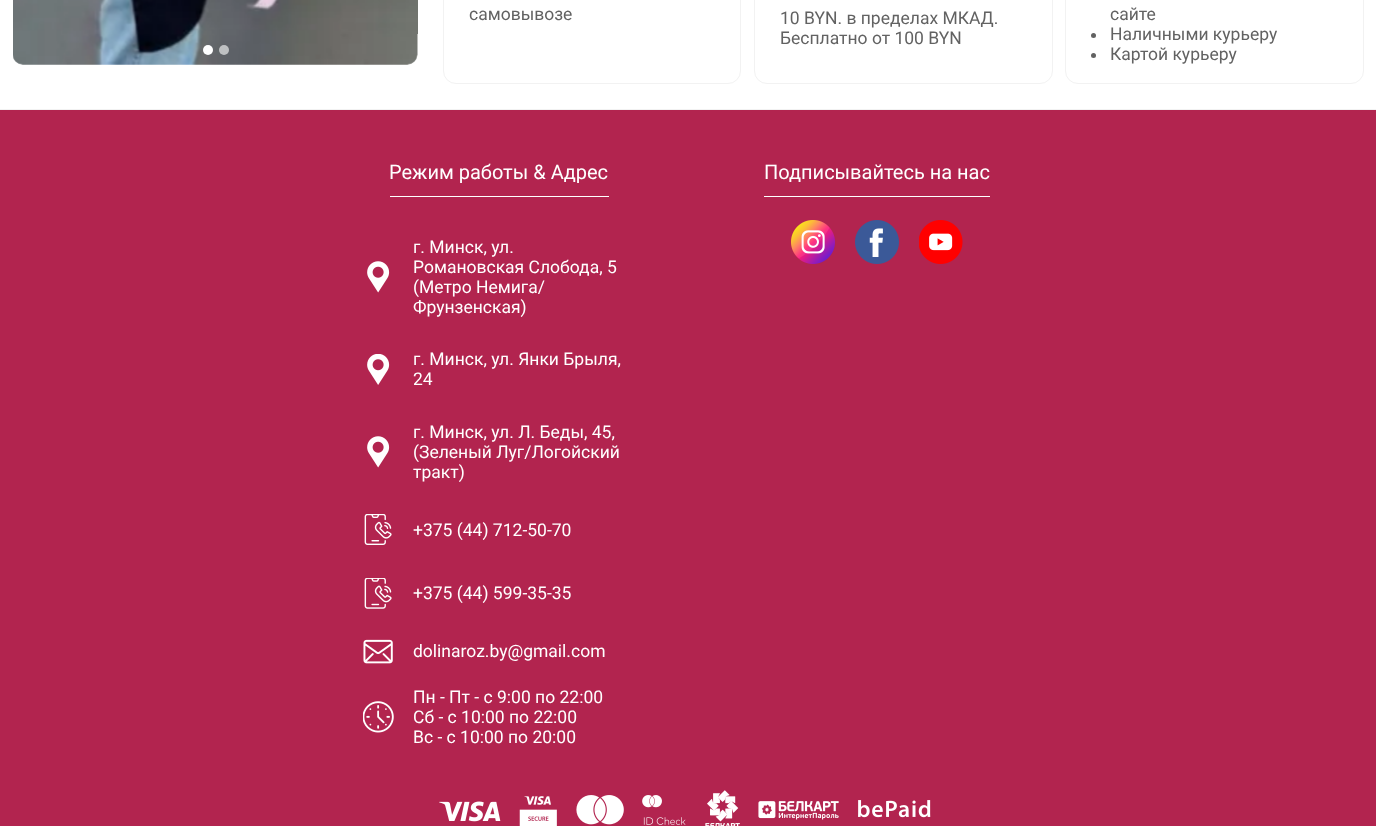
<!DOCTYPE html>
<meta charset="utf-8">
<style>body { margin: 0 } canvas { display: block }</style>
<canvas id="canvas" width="1376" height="826"></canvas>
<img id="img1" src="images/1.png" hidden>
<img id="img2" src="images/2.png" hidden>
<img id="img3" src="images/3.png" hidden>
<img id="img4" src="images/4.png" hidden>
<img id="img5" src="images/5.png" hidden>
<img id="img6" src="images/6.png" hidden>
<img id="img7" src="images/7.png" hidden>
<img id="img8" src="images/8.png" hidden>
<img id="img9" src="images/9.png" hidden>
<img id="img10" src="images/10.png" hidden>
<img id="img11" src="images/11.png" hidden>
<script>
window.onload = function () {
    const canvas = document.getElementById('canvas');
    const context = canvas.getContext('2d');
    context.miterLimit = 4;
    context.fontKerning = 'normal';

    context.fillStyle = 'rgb(255, 255, 255)';
    context.fillRect(0, 0, 1376, 826);
    context.drawImage(document.getElementById('img1'), 13, 0, 405, 65);
    context.beginPath();
    context.arc(208, 50, 5, 0, 2 * Math.PI);
    context.fill();
    context.fillStyle = 'rgba(255, 255, 255, 0.6)';
    context.beginPath();
    context.arc(224, 50, 5, 0, 2 * Math.PI);
    context.fill();
    context.beginPath();
    context.roundRect(443.5, -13.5, 297, 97, 12.5);
    context.strokeStyle = 'rgb(242, 242, 242)';
    context.stroke();
    context.beginPath();
    context.roundRect(754.5, -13.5, 298, 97, 12.5);
    context.stroke();
    context.beginPath();
    context.roundRect(1065.5, -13.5, 298, 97, 12.5);
    context.stroke();
    context.fillStyle = 'rgb(98, 98, 98)';
    context.beginPath();
    context.arc(1093.5, 35.5, 2.5, 0, 2 * Math.PI);
    context.fill();
    context.beginPath();
    context.arc(1093.5, 55.5, 2.5, 0, 2 * Math.PI);
    context.fill();
    context.fillStyle = 'rgb(178, 36, 79)';
    context.fillRect(0, 110, 1376, 716);
    context.fillStyle = 'rgb(242, 242, 242)';
    context.fillRect(0, 109, 1376, 1);
    context.fillStyle = 'rgb(255, 255, 255)';
    context.fillRect(390, 196, 219, 1);
    context.drawImage(document.getElementById('img2'), 367, 261, 23, 32);
    context.drawImage(document.getElementById('img3'), 367, 354, 23, 31);
    context.drawImage(document.getElementById('img2'), 367, 436, 23, 32);
    context.drawImage(document.getElementById('img4'), 364, 514, 28, 31);
    context.drawImage(document.getElementById('img5'), 364, 578, 28, 31);
    context.drawImage(document.getElementById('img6'), 363, 639, 30, 25);
    context.drawImage(document.getElementById('img7'), 363, 701, 31, 32);
    context.fillRect(764, 196, 226, 1);
    context.drawImage(document.getElementById('img8'), 791, 220, 44, 44);
    context.drawImage(document.getElementById('img9'), 855, 220, 44, 44);
    context.drawImage(document.getElementById('img10'), 919, 220, 44, 44);
    context.drawImage(document.getElementById('img11'), 439, 790, 492, 36);
    context.font = '17.5px Roboto';
    context.fillStyle = 'rgb(98, 98, 98)';
    context.fillText('самовывозе', 469, 20);
    context.fillText('10 BYN. в пределах МКАД.', 780, 24);
    context.fillText('Бесплатно от 100 BYN', 780, 44);
    context.fillText('сайте', 1110, 20);
    context.fillText('Наличными курьеру', 1110, 40);
    context.fillText('Картой курьеру', 1110, 60);
    context.font = '20px Roboto';
    context.fillStyle = 'rgb(255, 255, 255)';
    context.fillText('Режим работы & Адрес', 389, 179);
    context.font = '17.5px Roboto';
    context.fillText('г. Минск, ул.', 413, 253);
    context.fillText('Романовская Слобода, 5', 413, 273);
    context.fillText('(Метро Немига/', 413, 293);
    context.fillText('Фрунзенская)', 413, 313);
    context.fillText('г. Минск, ул. Янки Брыля,', 413, 365);
    context.fillText('24', 413, 385);
    context.fillText('г. Минск, ул. Л. Беды, 45,', 413, 438);
    context.fillText('(Зеленый Луг/Логойский', 413, 458);
    context.fillText('тракт)', 413, 478);
    context.fillText('+375 (44) 712-50-70', 413, 536);
    context.fillText('+375 (44) 599-35-35', 413, 599);
    context.fillText('dolinaroz.by@gmail.com', 413, 657);
    context.fillText('Пн - Пт - с 9:00 по 22:00', 413, 703);
    context.fillText('Сб - с 10:00 по 22:00', 413, 723);
    context.fillText('Вс - с 10:00 по 20:00', 413, 743);
    context.font = '20px Roboto';
    context.fillText('Подписывайтесь на нас', 764, 179);
};
</script>
